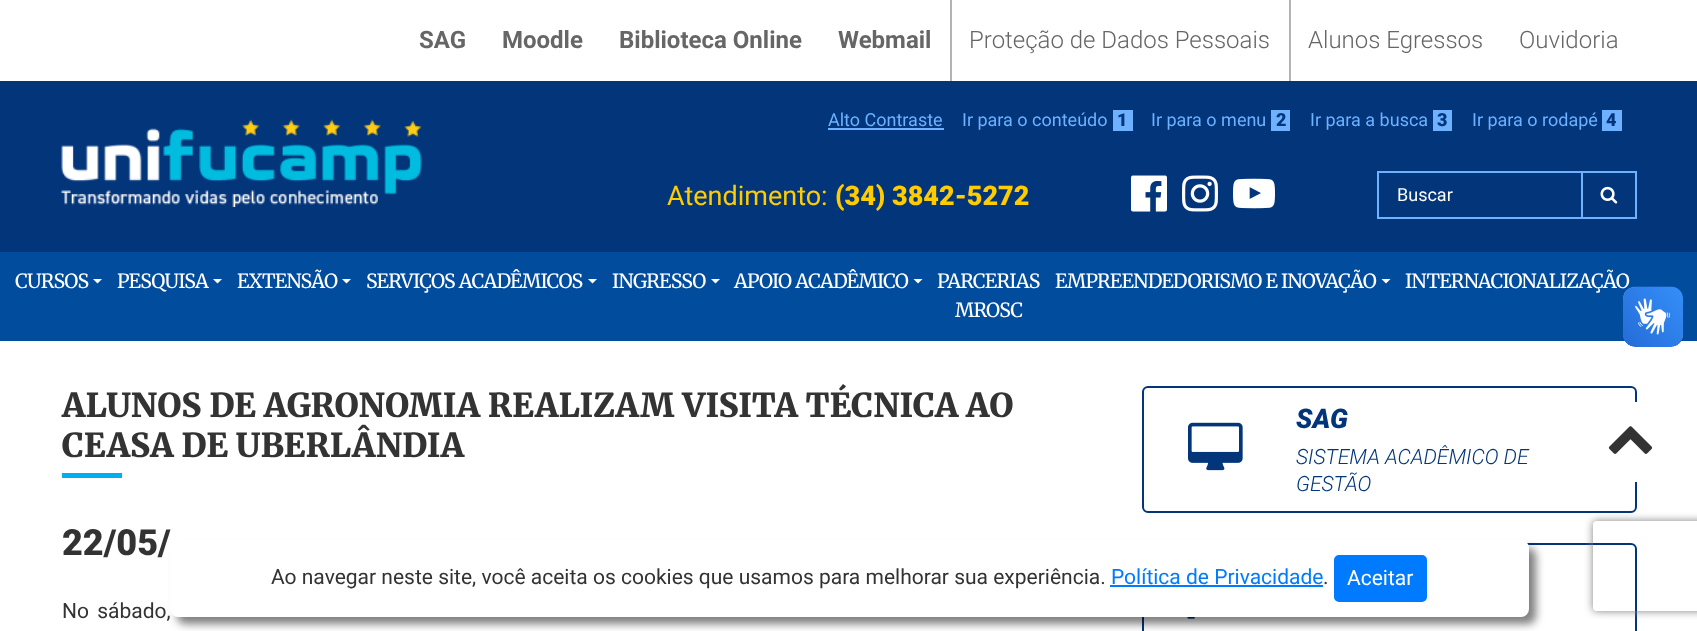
<!DOCTYPE html>
<meta charset="utf-8">
<style>body { margin: 0 } canvas { display: block }</style>
<canvas id="canvas" width="1697" height="631"></canvas>
<img id="img1" src="images/1.png" hidden>
<img id="img2" src="images/2.png" hidden>
<img id="img3" src="images/3.png" hidden>
<img id="img4" src="images/4.png" hidden>
<img id="img5" src="images/5.png" hidden>
<img id="img6" src="images/8.png" hidden>
<img id="img7" src="images/9.png" hidden>
<img id="img8" src="images/10.png" hidden>
<img id="img9" src="images/6.png" hidden>
<img id="img10" src="images/7.png" hidden>
<script>
window.onload = function () {
    const canvas = document.getElementById('canvas');
    const context = canvas.getContext('2d');
    context.miterLimit = 4;
    context.fontKerning = 'normal';

    context.fillStyle = 'rgb(255, 255, 255)';
    context.fillRect(0, 0, 1697, 631);
    context.fillStyle = 'rgb(179, 179, 179)';
    context.fillRect(1289, 0, 2, 81);
    context.fillRect(950, 0, 2, 81);
    context.fillStyle = 'rgb(3, 53, 122)';
    context.fillRect(0, 81, 1697, 171);
    context.drawImage(document.getElementById('img1'), 61, 119, 361, 88);
    context.fillStyle = 'rgb(109, 177, 255)';
    context.fillRect(828, 128, 116, 2);
    context.fillRect(1113, 110, 20, 21);
    context.fillRect(1271, 110, 19, 21);
    context.fillRect(1433, 110, 19, 21);
    context.fillRect(1602, 110, 20, 21);
    context.drawImage(document.getElementById('img2'), 1131, 175, 36, 37);
    context.drawImage(document.getElementById('img3'), 1182, 175, 36, 37);
    context.drawImage(document.getElementById('img4'), 1233, 178, 42, 31);
    context.strokeStyle = 'rgb(109, 177, 255)';
    context.lineWidth = 2;
    context.strokeRect(1378, 172, 204, 46);
    context.strokeRect(1582, 172, 54, 46);
    context.drawImage(document.getElementById('img5'), 1600, 186, 18, 18);
    context.fillStyle = 'rgb(2, 76, 158)';
    context.fillRect(0, 252, 1697, 89);
    context.fillStyle = 'rgb(255, 255, 255)';
    context.beginPath();
    context.moveTo(93, 279);
    context.lineTo(102, 279);
    context.lineTo(97.5, 283.5);
    context.closePath();
    context.fill();
    context.beginPath();
    context.moveTo(213, 279);
    context.lineTo(222, 279);
    context.lineTo(217.5, 283.5);
    context.closePath();
    context.fill();
    context.beginPath();
    context.moveTo(342, 279);
    context.lineTo(351, 279);
    context.lineTo(346.5, 283.5);
    context.closePath();
    context.fill();
    context.beginPath();
    context.moveTo(588, 279);
    context.lineTo(597, 279);
    context.lineTo(592.5, 283.5);
    context.closePath();
    context.fill();
    context.beginPath();
    context.moveTo(711, 279);
    context.lineTo(720, 279);
    context.lineTo(715.5, 283.5);
    context.closePath();
    context.fill();
    context.beginPath();
    context.moveTo(913.5, 279);
    context.lineTo(922.5, 279);
    context.lineTo(918, 283.5);
    context.closePath();
    context.fill();
    context.beginPath();
    context.moveTo(1381.5, 279);
    context.lineTo(1390.5, 279);
    context.lineTo(1386, 283.5);
    context.closePath();
    context.fill();
    context.fillStyle = 'rgb(0, 175, 239)';
    context.fillRect(62, 473, 60, 5);
    context.beginPath();
    context.roundRect(1143, 387, 493, 125, 5);
    context.strokeStyle = 'rgb(3, 53, 122)';
    context.stroke();
    context.drawImage(document.getElementById('img6'), 1188, 422, 55, 49);
    context.beginPath();
    context.roundRect(1143, 544, 493, 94, 5);
    context.stroke();
    context.drawImage(document.getElementById('img7'), 1187, 617, 8, 2);
    context.fillStyle = 'rgb(255, 255, 255)';
    context.fillRect(1635, 402, 2, 80);
    context.drawImage(document.getElementById('img8'), 1608, 426, 45, 28);
    context.fillStyle = 'rgba(0, 0, 0, 0.5)';
    context.filter = 'blur(4px)';
    context.beginPath();
    context.roundRect(177, 548, 1359, 76, 8);
    context.fill();
    context.filter = 'none';
    context.save();
    context.beginPath();
    context.moveTo(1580, 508);
    context.lineTo(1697, 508);
    context.lineTo(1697, 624);
    context.lineTo(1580, 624);
    context.closePath();
    context.moveTo(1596, 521);
    context.lineTo(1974, 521);
    context.bezierCurveTo(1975.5, 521, 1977, 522.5, 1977, 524);
    context.lineTo(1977, 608);
    context.bezierCurveTo(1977, 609.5, 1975.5, 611, 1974, 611);
    context.lineTo(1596, 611);
    context.bezierCurveTo(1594.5, 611, 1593, 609.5, 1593, 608);
    context.lineTo(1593, 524);
    context.bezierCurveTo(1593, 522.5, 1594.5, 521, 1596, 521);
    context.closePath();
    context.clip('evenodd');
    context.fillStyle = 'rgb(128, 128, 128)';
    context.filter = 'blur(4px)';
    context.beginPath();
    context.roundRect(1593, 521, 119, 90, 3);
    context.fill();
    context.filter = 'none';
    context.restore();
    context.font = 'bold 24px Roboto';
    context.fillStyle = 'rgb(102, 102, 102)';
    context.fillText('SAG', 419, 48);
    context.fillText('Moodle', 502, 48);
    context.fillText('Biblioteca Online', 619, 48);
    context.fillText('Webmail', 838, 48);
    context.font = '300 24px Roboto';
    context.fillText('Proteção de Dados Pessoais', 969, 48);
    context.fillText('Alunos Egressos', 1308, 48);
    context.fillText('Ouvidoria', 1519, 48);
    context.font = '18px Roboto';
    context.fillStyle = 'rgb(109, 177, 255)';
    context.fillText('Alto Contraste', 828, 126);
    context.fillText('Ir para o conteúdo', 962, 126);
    context.font = '900 18px Roboto';
    context.fillStyle = 'rgb(3, 53, 122)';
    context.fillText('1', 1117, 126);
    context.font = '18px Roboto';
    context.fillStyle = 'rgb(109, 177, 255)';
    context.fillText('Ir para o menu', 1151, 126);
    context.font = '900 18px Roboto';
    context.fillStyle = 'rgb(3, 53, 122)';
    context.fillText('2', 1276, 126);
    context.font = '18px Roboto';
    context.fillStyle = 'rgb(109, 177, 255)';
    context.fillText('Ir para a busca', 1310, 126);
    context.font = '900 18px Roboto';
    context.fillStyle = 'rgb(3, 53, 122)';
    context.fillText('3', 1437, 126);
    context.font = '18px Roboto';
    context.fillStyle = 'rgb(109, 177, 255)';
    context.fillText('Ir para o rodapé', 1472, 126);
    context.font = '900 18px Roboto';
    context.fillStyle = 'rgb(3, 53, 122)';
    context.fillText('4', 1606, 126);
    context.font = '27px Roboto';
    context.fillStyle = 'rgb(255, 204, 0)';
    context.fillText('Atendimento:', 667, 205);
    context.font = '900 27px Roboto';
    context.fillText('(34) 3842-5272', 835, 205);
    context.font = '18px Roboto';
    context.fillStyle = 'rgb(255, 255, 255)';
    context.fillText('Buscar', 1397, 201);
    context.letterSpacing = '-0.75px';
    context.font = '19.5px Merriweather';
    context.fillText('CURSOS', 15, 288);
    context.fillText('PESQUISA', 117, 288);
    context.fillText('EXTENSÃO', 237, 288);
    context.fillText('SERVIÇOS ACADÊMICOS', 366, 288);
    context.fillText('INGRESSO', 612, 288);
    context.fillText('APOIO ACADÊMICO', 734, 288);
    context.fillText('PARCERIAS', 937, 288);
    context.fillText('MROSC', 955, 317);
    context.fillText('EMPREENDEDORISMO E INOVAÇÃO', 1055, 288);
    context.fillText('INTERNACIONALIZAÇÃO', 1405, 288);
    context.drawImage(document.getElementById('img9'), 1623, 286, 60, 61);
    context.drawImage(document.getElementById('img10'), 1623, 287, 60, 60);
    context.letterSpacing = '0px';
    context.font = '900 33px Merriweather';
    context.fillStyle = 'rgb(51, 51, 51)';
    context.fillText('ALUNOS DE AGRONOMIA REALIZAM VISITA TÉCNICA AO', 62, 417);
    context.fillText('CEASA DE UBERLÂNDIA', 62, 457);
    context.font = '900 36px Roboto';
    context.fillText('22/05/', 62, 555);
    context.wordSpacing = '3px';
    context.font = '21px Roboto';
    context.fillText('No sábado,', 62, 618);
    context.wordSpacing = '0px';
    context.font = 'italic 900 27px Roboto';
    context.fillStyle = 'rgb(3, 53, 122)';
    context.fillText('SAG', 1296, 428);
    context.font = 'italic 300 21px Roboto';
    context.fillText('SISTEMA ACADÊMICO DE', 1296, 464);
    context.fillText('GESTÃO', 1296, 491);
    context.fillStyle = 'rgb(255, 255, 255)';
    context.beginPath();
    context.roundRect(170, 540, 1359, 77, 8);
    context.fill();
    context.font = '21px Roboto';
    context.fillStyle = 'rgb(51, 51, 51)';
    context.fillText('Ao navegar neste site, você aceita os cookies que usamos para melhorar sua experiência.', 271, 584);
    context.fillStyle = 'rgb(0, 123, 255)';
    context.fillText('Política de Privacidade', 1111, 584);
    context.fillRect(1110, 585, 213, 2);
    context.fillStyle = 'rgb(51, 51, 51)';
    context.fillText('.', 1323, 584);
    context.fillStyle = 'rgb(0, 123, 255)';
    context.beginPath();
    context.roundRect(1335, 556, 91, 45, 4);
    context.fill();
    context.strokeStyle = 'rgb(0, 123, 255)';
    context.stroke();
    context.fillStyle = 'rgb(255, 255, 255)';
    context.fillText('Aceitar', 1347, 585);
};
</script>
